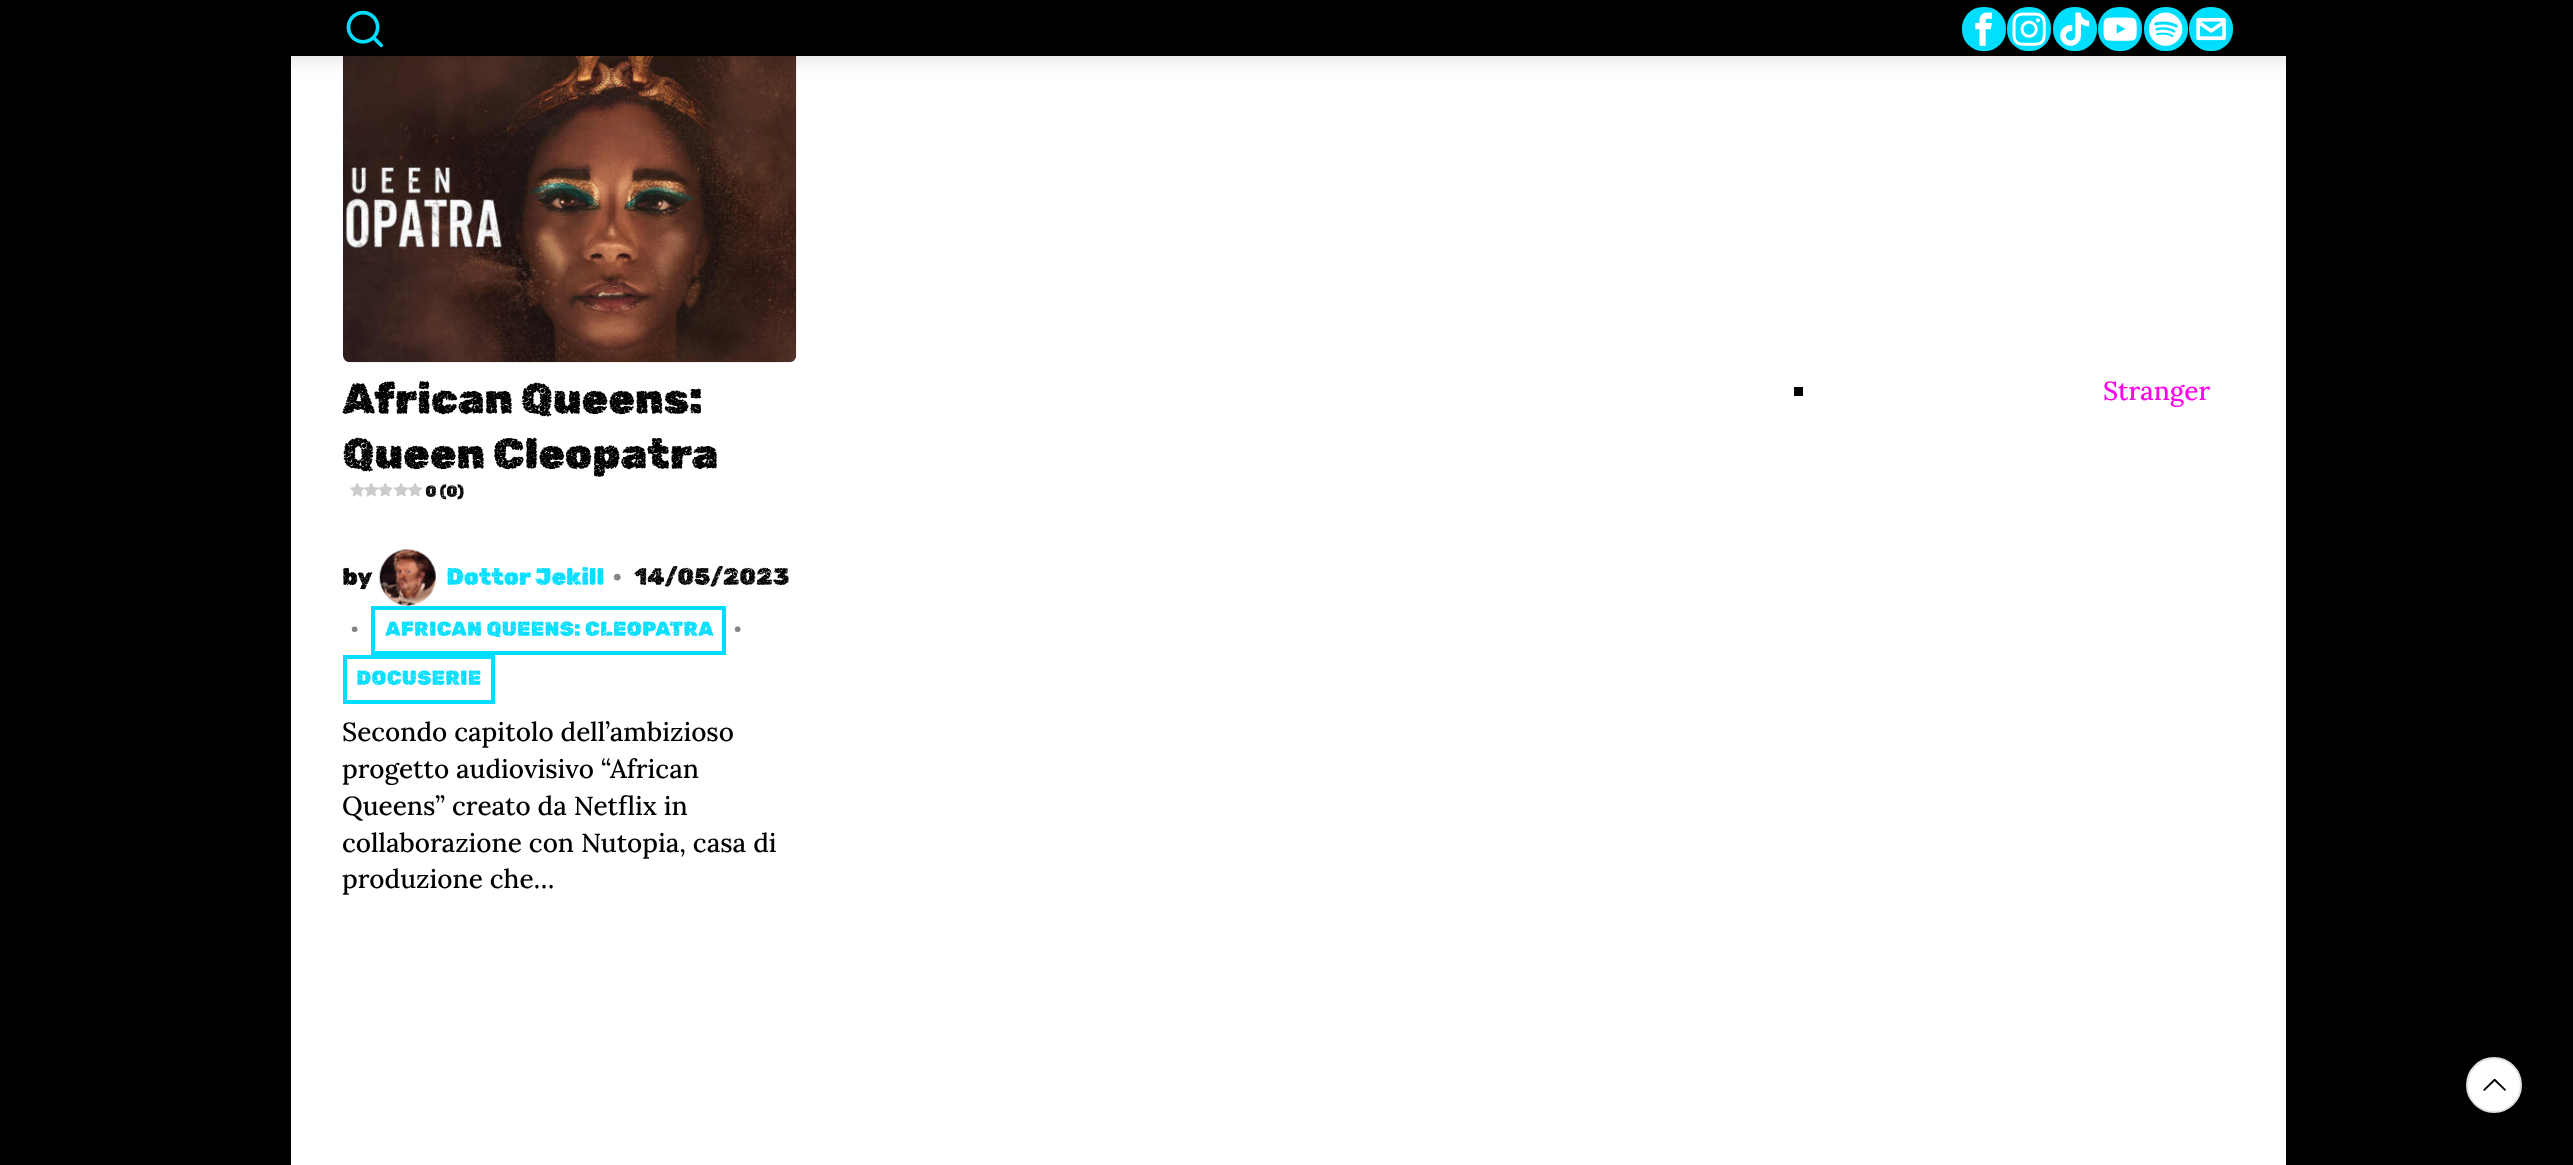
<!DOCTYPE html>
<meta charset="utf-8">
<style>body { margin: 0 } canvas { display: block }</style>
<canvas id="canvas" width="2573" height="1165"></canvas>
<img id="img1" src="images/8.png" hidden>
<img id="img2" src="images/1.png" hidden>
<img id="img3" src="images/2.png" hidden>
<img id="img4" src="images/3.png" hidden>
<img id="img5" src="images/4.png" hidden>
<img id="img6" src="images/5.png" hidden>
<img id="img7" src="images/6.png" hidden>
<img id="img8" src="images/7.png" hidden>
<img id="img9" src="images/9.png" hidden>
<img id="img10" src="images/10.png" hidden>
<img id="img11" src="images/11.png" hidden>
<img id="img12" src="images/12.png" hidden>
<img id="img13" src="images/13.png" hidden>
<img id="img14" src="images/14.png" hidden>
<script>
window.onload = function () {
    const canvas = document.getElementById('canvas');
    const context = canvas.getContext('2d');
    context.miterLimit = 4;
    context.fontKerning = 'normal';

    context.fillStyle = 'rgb(0, 0, 0)';
    context.fillRect(0, 0, 2573, 1165);
    context.fillStyle = 'rgb(255, 255, 255)';
    context.fillRect(291, 56, 1995, 1109);
    context.drawImage(document.getElementById('img1'), 343, 56, 454, 307);
    context.fillStyle = 'rgba(0, 0, 0, 0.1)';
    context.filter = 'blur(9px)';
    context.beginPath();
    context.rect(0, 5, 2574, 56);
    context.fill();
    context.filter = 'none';
    context.drawImage(document.getElementById('img2'), 346, 10, 38, 38);
    context.fillStyle = 'rgb(0, 222, 255)';
    context.beginPath();
    context.roundRect(1962, 7, 44, 44, 21);
    context.fill();
    context.drawImage(document.getElementById('img3'), 1975, 12, 17, 34);
    context.beginPath();
    context.roundRect(2007, 7, 44, 44, 21);
    context.fill();
    context.drawImage(document.getElementById('img4'), 2012, 12, 34, 34);
    context.beginPath();
    context.roundRect(2053, 7, 44, 44, 21);
    context.fill();
    context.drawImage(document.getElementById('img5'), 2060, 12, 30, 34);
    context.beginPath();
    context.roundRect(2098, 7, 44, 44, 21);
    context.fill();
    context.drawImage(document.getElementById('img6'), 2103, 17, 34, 24);
    context.beginPath();
    context.roundRect(2144, 7, 44, 44, 21);
    context.fill();
    context.drawImage(document.getElementById('img7'), 2149, 12, 34, 34);
    context.beginPath();
    context.roundRect(2189, 7, 44, 44, 21);
    context.fill();
    context.drawImage(document.getElementById('img8'), 2196, 17, 30, 24);
    context.drawImage(document.getElementById('img9'), 350, 482, 15, 15);
    context.drawImage(document.getElementById('img10'), 364, 482, 15, 15);
    context.drawImage(document.getElementById('img10'), 378, 482, 15, 15);
    context.drawImage(document.getElementById('img11'), 393, 482, 16, 15);
    context.drawImage(document.getElementById('img12'), 408, 482, 15, 15);
    context.drawImage(document.getElementById('img13'), 379, 549, 57, 57);
    context.strokeStyle = 'rgb(0, 222, 255)';
    context.lineWidth = 4;
    context.strokeRect(373, 608, 351, 45);
    context.strokeRect(345, 657, 148, 45);
    context.fillStyle = 'rgb(0, 0, 0)';
    context.fillRect(1794, 387, 9, 9);
    context.fillStyle = 'rgb(255, 255, 255)';
    context.beginPath();
    context.arc(2494, 1085, 27, 0, 2 * Math.PI);
    context.fill();
    context.strokeStyle = 'rgb(225, 225, 225)';
    context.lineWidth = 2;
    context.stroke();
    context.drawImage(document.getElementById('img14'), 2483, 1078, 23, 13);
    context.font = 'bold 42.75px Rubik Microbe';
    context.fillStyle = 'rgb(0, 0, 0)';
    context.fillText('African Queens:', 342, 414);
    context.fillText('Queen Cleopatra', 342, 469);
    context.font = 'bold 16px Rubik Microbe';
    context.fillText('0 (0)', 425, 497);
    context.font = 'bold 23.5px Rubik Microbe';
    context.fillText('by', 342, 585);
    context.fillStyle = 'rgb(0, 222, 255)';
    context.fillText('Dottor Jekill', 446, 585);
    context.fillStyle = 'rgb(128, 128, 128)';
    context.fillText('·', 613, 585);
    context.fillStyle = 'rgb(0, 0, 0)';
    context.fillText('14/05/2023', 634, 585);
    context.letterSpacing = '0.35px';
    context.font = 'bold 20.1px Rubik Microbe';
    context.fillStyle = 'rgb(128, 128, 128)';
    context.fillText('·', 351, 636);
    context.fillStyle = 'rgb(0, 222, 255)';
    context.fillText('AFRICAN QUEENS: CLEOPATRA', 385, 636);
    context.fillStyle = 'rgb(128, 128, 128)';
    context.fillText('·', 734, 636);
    context.fillStyle = 'rgb(0, 222, 255)';
    context.fillText('DOCUSERIE', 356, 685);
    context.letterSpacing = '0px';
    context.font = '500 26.25px Lora';
    context.fillStyle = 'rgb(0, 0, 0)';
    context.fillText('Secondo capitolo dell’ambizioso', 342, 741);
    context.fillText('progetto audiovisivo “African', 342, 778);
    context.fillText('Queens” creato da Netflix in', 342, 815);
    context.fillText('collaborazione con Nutopia, casa di', 342, 852);
    context.fillText('produzione che…', 342, 888);
    context.fillStyle = 'rgb(255, 0, 236)';
    context.fillText('Stranger', 2103, 400);
};
</script>
